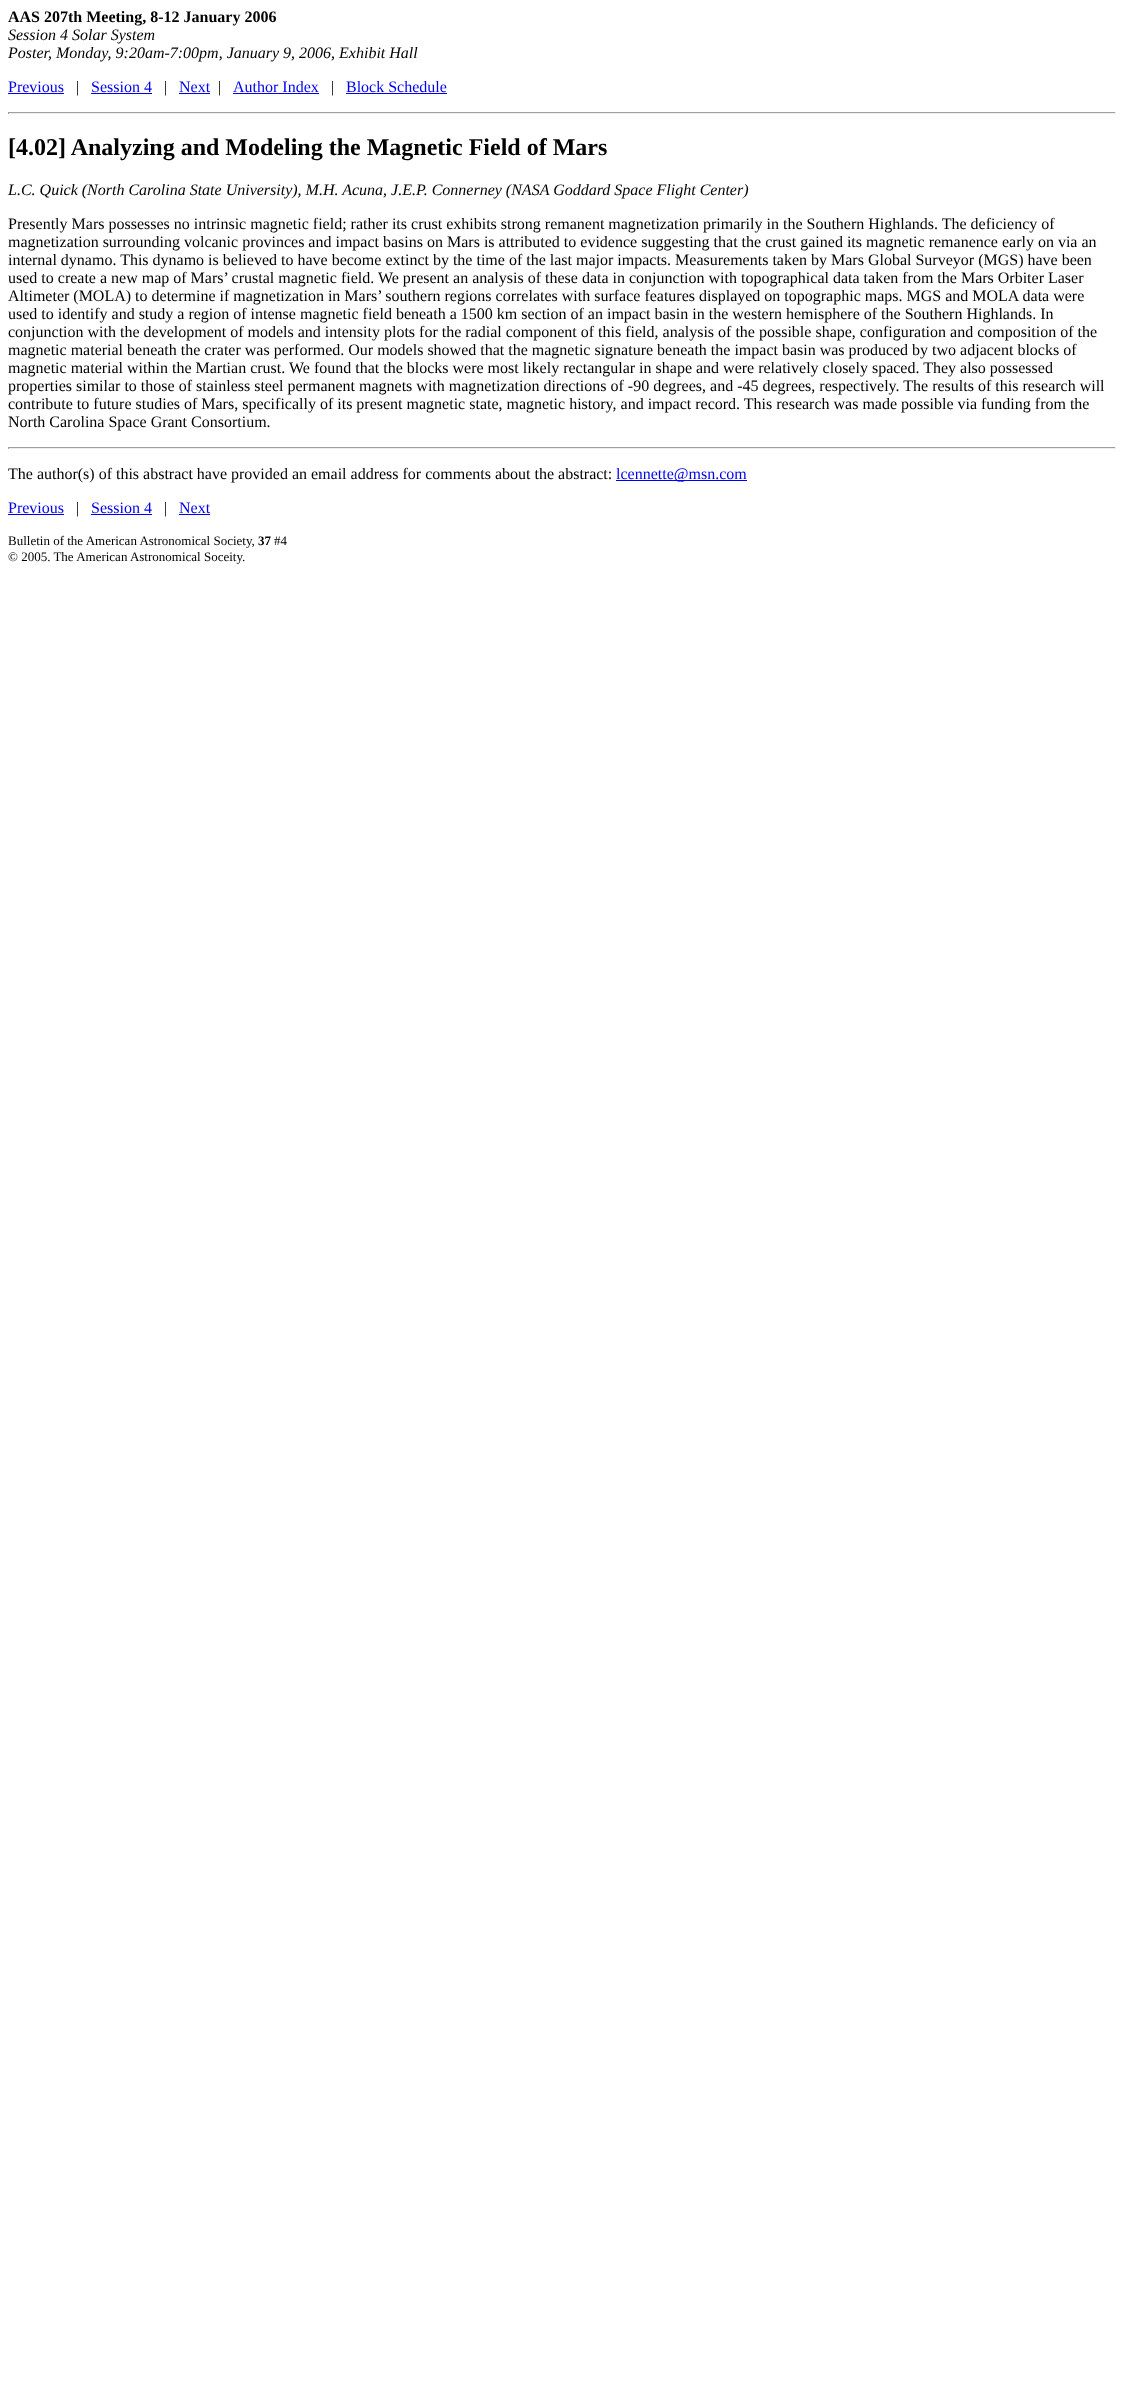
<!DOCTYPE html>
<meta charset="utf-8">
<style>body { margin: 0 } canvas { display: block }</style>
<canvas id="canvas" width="1124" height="2397"></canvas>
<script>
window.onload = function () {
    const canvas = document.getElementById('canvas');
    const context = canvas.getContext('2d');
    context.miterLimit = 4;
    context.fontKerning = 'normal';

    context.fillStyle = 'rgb(255, 255, 255)';
    context.fillRect(0, 0, 1124, 2397);
    context.fillStyle = 'rgb(0, 0, 238)';
    context.fillRect(8, 93, 56, 1);
    context.fillRect(91, 93, 61, 1);
    context.fillRect(179, 93, 31, 1);
    context.fillRect(233, 93, 86, 1);
    context.fillRect(346, 93, 101, 1);
    context.fillStyle = 'rgb(159, 159, 159)';
    context.fillRect(8, 112, 1108, 1);
    context.fillStyle = 'rgb(238, 238, 238)';
    context.fillRect(1115, 112, 1, 2);
    context.fillRect(8, 113, 1108, 1);
    context.fillStyle = 'rgb(159, 159, 159)';
    context.fillRect(8, 112, 1, 2);
    context.fillRect(8, 447, 1108, 1);
    context.fillStyle = 'rgb(238, 238, 238)';
    context.fillRect(1115, 447, 1, 2);
    context.fillRect(8, 448, 1108, 1);
    context.fillStyle = 'rgb(159, 159, 159)';
    context.fillRect(8, 447, 1, 2);
    context.fillStyle = 'rgb(0, 0, 238)';
    context.fillRect(616, 480, 131, 1);
    context.fillRect(8, 514, 56, 1);
    context.fillRect(91, 514, 61, 1);
    context.fillRect(179, 514, 31, 1);
    context.font = 'bold 16px Liberation Serif';
    context.fillStyle = 'rgb(0, 0, 0)';
    context.fillText('AAS 207th Meeting, 8-12 January 2006', 8, 22);
    context.font = 'italic 16px Liberation Serif';
    context.fillText('Session 4 Solar System', 8, 40);
    context.fillText('Poster, Monday, 9:20am-7:00pm, January 9, 2006, Exhibit Hall', 8, 58);
    context.font = '16px Liberation Serif';
    context.fillStyle = 'rgb(0, 0, 238)';
    context.fillText('Previous', 8, 92);
    context.fillStyle = 'rgb(0, 0, 0)';
    context.fillText('|', 76, 92);
    context.fillStyle = 'rgb(0, 0, 238)';
    context.fillText('Session 4', 91, 92);
    context.fillStyle = 'rgb(0, 0, 0)';
    context.fillText('|', 164, 92);
    context.fillStyle = 'rgb(0, 0, 238)';
    context.fillText('Next', 179, 92);
    context.fillStyle = 'rgb(0, 0, 0)';
    context.fillText('|', 218, 92);
    context.fillStyle = 'rgb(0, 0, 238)';
    context.fillText('Author Index', 233, 92);
    context.fillStyle = 'rgb(0, 0, 0)';
    context.fillText('|', 331, 92);
    context.fillStyle = 'rgb(0, 0, 238)';
    context.fillText('Block Schedule', 346, 92);
    context.font = 'bold 24px Liberation Serif';
    context.fillStyle = 'rgb(0, 0, 0)';
    context.fillText('[4.02] Analyzing and Modeling the Magnetic Field of Mars', 8, 155);
    context.font = 'italic 16px Liberation Serif';
    context.fillText('L.C. Quick (North Carolina State University), M.H. Acuna, J.E.P. Connerney (NASA Goddard Space Flight Center)', 8, 195);
    context.font = '16px Liberation Serif';
    context.fillText('Presently Mars possesses no intrinsic magnetic field; rather its crust exhibits strong remanent magnetization primarily in the Southern Highlands. The deficiency of', 8, 229);
    context.fillText('magnetization surrounding volcanic provinces and impact basins on Mars is attributed to evidence suggesting that the crust gained its magnetic remanence early on via an', 8, 247);
    context.fillText('internal dynamo. This dynamo is believed to have become extinct by the time of the last major impacts. Measurements taken by Mars Global Surveyor (MGS) have been', 8, 265);
    context.fillText('used to create a new map of Mars’ crustal magnetic field. We present an analysis of these data in conjunction with topographical data taken from the Mars Orbiter Laser', 8, 283);
    context.fillText('Altimeter (MOLA) to determine if magnetization in Mars’ southern regions correlates with surface features displayed on topographic maps. MGS and MOLA data were', 8, 301);
    context.fillText('used to identify and study a region of intense magnetic field beneath a 1500 km section of an impact basin in the western hemisphere of the Southern Highlands. In', 8, 319);
    context.fillText('conjunction with the development of models and intensity plots for the radial component of this field, analysis of the possible shape, configuration and composition of the', 8, 337);
    context.fillText('magnetic material beneath the crater was performed. Our models showed that the magnetic signature beneath the impact basin was produced by two adjacent blocks of', 8, 355);
    context.fillText('magnetic material within the Martian crust. We found that the blocks were most likely rectangular in shape and were relatively closely spaced. They also possessed', 8, 373);
    context.fillText('properties similar to those of stainless steel permanent magnets with magnetization directions of -90 degrees, and -45 degrees, respectively. The results of this research will', 8, 391);
    context.fillText('contribute to future studies of Mars, specifically of its present magnetic state, magnetic history, and impact record. This research was made possible via funding from the', 8, 409);
    context.fillText('North Carolina Space Grant Consortium.', 8, 427);
    context.fillText('The author(s) of this abstract have provided an email address for comments about the abstract:', 8, 479);
    context.fillStyle = 'rgb(0, 0, 238)';
    context.fillText('lcennette@msn.com', 616, 479);
    context.fillText('Previous', 8, 513);
    context.fillStyle = 'rgb(0, 0, 0)';
    context.fillText('|', 76, 513);
    context.fillStyle = 'rgb(0, 0, 238)';
    context.fillText('Session 4', 91, 513);
    context.fillStyle = 'rgb(0, 0, 0)';
    context.fillText('|', 164, 513);
    context.fillStyle = 'rgb(0, 0, 238)';
    context.fillText('Next', 179, 513);
    context.font = '13px Liberation Serif';
    context.fillStyle = 'rgb(0, 0, 0)';
    context.fillText('Bulletin of the American Astronomical Society,', 8, 545);
    context.font = 'bold 13px Liberation Serif';
    context.fillText('37', 258, 545);
    context.font = '13px Liberation Serif';
    context.fillText('#4', 274, 545);
    context.fillText('© 2005. The American Astronomical Soceity.', 8, 561);
};
</script>
